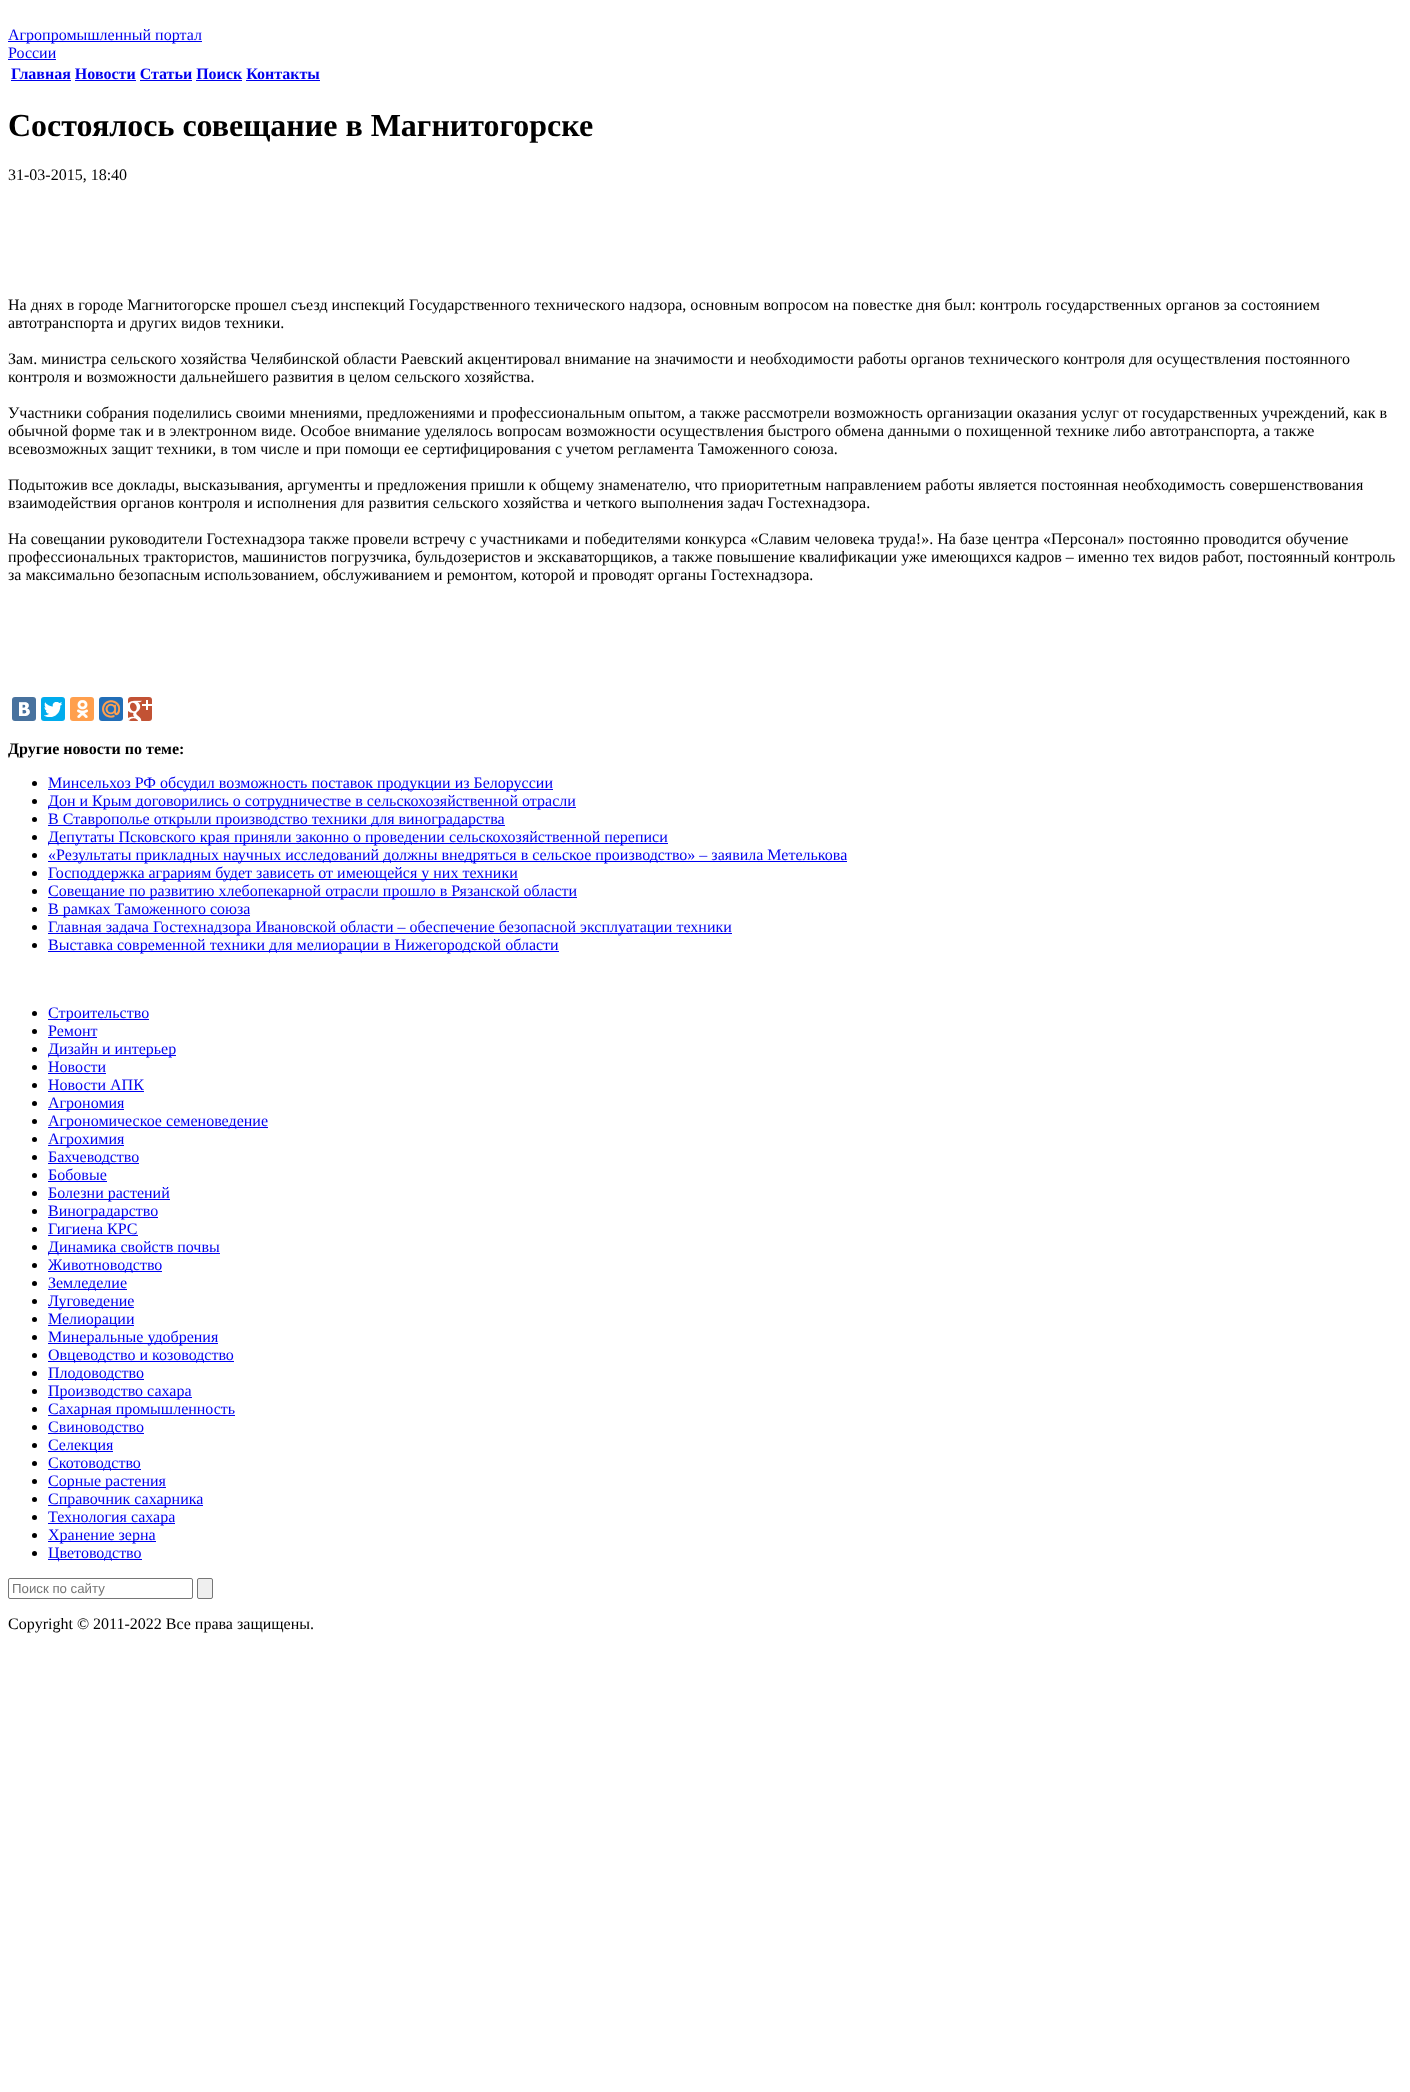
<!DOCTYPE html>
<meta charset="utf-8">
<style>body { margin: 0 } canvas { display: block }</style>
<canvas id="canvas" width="1410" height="2092"></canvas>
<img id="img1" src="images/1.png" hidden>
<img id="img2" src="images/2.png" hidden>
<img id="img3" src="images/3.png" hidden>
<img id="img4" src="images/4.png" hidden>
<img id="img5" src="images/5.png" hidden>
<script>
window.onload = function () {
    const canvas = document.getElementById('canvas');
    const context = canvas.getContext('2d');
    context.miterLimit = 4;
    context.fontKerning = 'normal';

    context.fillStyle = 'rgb(255, 255, 255)';
    context.fillRect(0, 0, 1410, 2092);
    context.fillStyle = 'rgb(0, 0, 238)';
    context.fillRect(8, 41, 194, 1);
    context.fillRect(8, 59, 48, 1);
    context.fillRect(11, 80, 60, 1);
    context.fillRect(75, 80, 61, 1);
    context.fillRect(140, 80, 52, 1);
    context.fillRect(196, 80, 46, 1);
    context.fillRect(246, 80, 74, 1);
    context.fillStyle = 'rgb(72, 114, 158)';
    context.beginPath();
    context.roundRect(12, 697, 24, 24, 3);
    context.fill();
    context.drawImage(document.getElementById('img1'), 19, 702, 11, 14);
    context.fillStyle = 'rgb(0, 172, 237)';
    context.beginPath();
    context.roundRect(41, 697, 24, 24, 3);
    context.fill();
    context.drawImage(document.getElementById('img2'), 44, 702, 18, 15);
    context.fillStyle = 'rgb(255, 159, 77)';
    context.beginPath();
    context.roundRect(70, 697, 24, 24, 3);
    context.fill();
    context.drawImage(document.getElementById('img3'), 77, 700, 11, 18);
    context.fillStyle = 'rgb(34, 110, 183)';
    context.beginPath();
    context.roundRect(99, 697, 24, 24, 3);
    context.fill();
    context.drawImage(document.getElementById('img4'), 102, 700, 18, 18);
    context.fillStyle = 'rgb(194, 82, 52)';
    context.beginPath();
    context.roundRect(128, 697, 24, 24, 3);
    context.fill();
    context.drawImage(document.getElementById('img5'), 128, 700, 24, 21);
    context.fillStyle = 'rgb(0, 0, 0)';
    context.beginPath();
    context.arc(34.5, 783.5, 2.5, 0, 2 * Math.PI);
    context.fill();
    context.fillStyle = 'rgb(0, 0, 238)';
    context.fillRect(48, 789, 505, 1);
    context.fillStyle = 'rgb(0, 0, 0)';
    context.beginPath();
    context.arc(34.5, 801.5, 2.5, 0, 2 * Math.PI);
    context.fill();
    context.fillStyle = 'rgb(0, 0, 238)';
    context.fillRect(48, 807, 528, 1);
    context.fillStyle = 'rgb(0, 0, 0)';
    context.beginPath();
    context.arc(34.5, 819.5, 2.5, 0, 2 * Math.PI);
    context.fill();
    context.fillStyle = 'rgb(0, 0, 238)';
    context.fillRect(48, 825, 457, 1);
    context.fillStyle = 'rgb(0, 0, 0)';
    context.beginPath();
    context.arc(34.5, 837.5, 2.5, 0, 2 * Math.PI);
    context.fill();
    context.fillStyle = 'rgb(0, 0, 238)';
    context.fillRect(48, 843, 620, 1);
    context.fillStyle = 'rgb(0, 0, 0)';
    context.beginPath();
    context.arc(34.5, 855.5, 2.5, 0, 2 * Math.PI);
    context.fill();
    context.fillStyle = 'rgb(0, 0, 238)';
    context.fillRect(48, 861, 799, 1);
    context.fillStyle = 'rgb(0, 0, 0)';
    context.beginPath();
    context.arc(34.5, 873.5, 2.5, 0, 2 * Math.PI);
    context.fill();
    context.fillStyle = 'rgb(0, 0, 238)';
    context.fillRect(48, 879, 470, 1);
    context.fillStyle = 'rgb(0, 0, 0)';
    context.beginPath();
    context.arc(34.5, 891.5, 2.5, 0, 2 * Math.PI);
    context.fill();
    context.fillStyle = 'rgb(0, 0, 238)';
    context.fillRect(48, 897, 529, 1);
    context.fillStyle = 'rgb(0, 0, 0)';
    context.beginPath();
    context.arc(34.5, 909.5, 2.5, 0, 2 * Math.PI);
    context.fill();
    context.fillStyle = 'rgb(0, 0, 238)';
    context.fillRect(48, 915, 202, 1);
    context.fillStyle = 'rgb(0, 0, 0)';
    context.beginPath();
    context.arc(34.5, 927.5, 2.5, 0, 2 * Math.PI);
    context.fill();
    context.fillStyle = 'rgb(0, 0, 238)';
    context.fillRect(48, 933, 684, 1);
    context.fillStyle = 'rgb(0, 0, 0)';
    context.beginPath();
    context.arc(34.5, 945.5, 2.5, 0, 2 * Math.PI);
    context.fill();
    context.fillStyle = 'rgb(0, 0, 238)';
    context.fillRect(48, 951, 511, 1);
    context.fillStyle = 'rgb(0, 0, 0)';
    context.beginPath();
    context.arc(34.5, 1013.5, 2.5, 0, 2 * Math.PI);
    context.fill();
    context.fillStyle = 'rgb(0, 0, 238)';
    context.fillRect(48, 1019, 101, 1);
    context.fillStyle = 'rgb(0, 0, 0)';
    context.beginPath();
    context.arc(34.5, 1031.5, 2.5, 0, 2 * Math.PI);
    context.fill();
    context.fillStyle = 'rgb(0, 0, 238)';
    context.fillRect(48, 1037, 49, 1);
    context.fillStyle = 'rgb(0, 0, 0)';
    context.beginPath();
    context.arc(34.5, 1049.5, 2.5, 0, 2 * Math.PI);
    context.fill();
    context.fillStyle = 'rgb(0, 0, 238)';
    context.fillRect(48, 1055, 128, 1);
    context.fillStyle = 'rgb(0, 0, 0)';
    context.beginPath();
    context.arc(34.5, 1067.5, 2.5, 0, 2 * Math.PI);
    context.fill();
    context.fillStyle = 'rgb(0, 0, 238)';
    context.fillRect(48, 1073, 58, 1);
    context.fillStyle = 'rgb(0, 0, 0)';
    context.beginPath();
    context.arc(34.5, 1085.5, 2.5, 0, 2 * Math.PI);
    context.fill();
    context.fillStyle = 'rgb(0, 0, 238)';
    context.fillRect(48, 1091, 96, 1);
    context.fillStyle = 'rgb(0, 0, 0)';
    context.beginPath();
    context.arc(34.5, 1103.5, 2.5, 0, 2 * Math.PI);
    context.fill();
    context.fillStyle = 'rgb(0, 0, 238)';
    context.fillRect(48, 1109, 76, 1);
    context.fillStyle = 'rgb(0, 0, 0)';
    context.beginPath();
    context.arc(34.5, 1121.5, 2.5, 0, 2 * Math.PI);
    context.fill();
    context.fillStyle = 'rgb(0, 0, 238)';
    context.fillRect(48, 1127, 220, 1);
    context.fillStyle = 'rgb(0, 0, 0)';
    context.beginPath();
    context.arc(34.5, 1139.5, 2.5, 0, 2 * Math.PI);
    context.fill();
    context.fillStyle = 'rgb(0, 0, 238)';
    context.fillRect(48, 1145, 76, 1);
    context.fillStyle = 'rgb(0, 0, 0)';
    context.beginPath();
    context.arc(34.5, 1157.5, 2.5, 0, 2 * Math.PI);
    context.fill();
    context.fillStyle = 'rgb(0, 0, 238)';
    context.fillRect(48, 1163, 91, 1);
    context.fillStyle = 'rgb(0, 0, 0)';
    context.beginPath();
    context.arc(34.5, 1175.5, 2.5, 0, 2 * Math.PI);
    context.fill();
    context.fillStyle = 'rgb(0, 0, 238)';
    context.fillRect(48, 1181, 59, 1);
    context.fillStyle = 'rgb(0, 0, 0)';
    context.beginPath();
    context.arc(34.5, 1193.5, 2.5, 0, 2 * Math.PI);
    context.fill();
    context.fillStyle = 'rgb(0, 0, 238)';
    context.fillRect(48, 1199, 122, 1);
    context.fillStyle = 'rgb(0, 0, 0)';
    context.beginPath();
    context.arc(34.5, 1211.5, 2.5, 0, 2 * Math.PI);
    context.fill();
    context.fillStyle = 'rgb(0, 0, 238)';
    context.fillRect(48, 1217, 110, 1);
    context.fillStyle = 'rgb(0, 0, 0)';
    context.beginPath();
    context.arc(34.5, 1229.5, 2.5, 0, 2 * Math.PI);
    context.fill();
    context.fillStyle = 'rgb(0, 0, 238)';
    context.fillRect(48, 1235, 90, 1);
    context.fillStyle = 'rgb(0, 0, 0)';
    context.beginPath();
    context.arc(34.5, 1247.5, 2.5, 0, 2 * Math.PI);
    context.fill();
    context.fillStyle = 'rgb(0, 0, 238)';
    context.fillRect(48, 1253, 172, 1);
    context.fillStyle = 'rgb(0, 0, 0)';
    context.beginPath();
    context.arc(34.5, 1265.5, 2.5, 0, 2 * Math.PI);
    context.fill();
    context.fillStyle = 'rgb(0, 0, 238)';
    context.fillRect(48, 1271, 114, 1);
    context.fillStyle = 'rgb(0, 0, 0)';
    context.beginPath();
    context.arc(34.5, 1283.5, 2.5, 0, 2 * Math.PI);
    context.fill();
    context.fillStyle = 'rgb(0, 0, 238)';
    context.fillRect(48, 1289, 79, 1);
    context.fillStyle = 'rgb(0, 0, 0)';
    context.beginPath();
    context.arc(34.5, 1301.5, 2.5, 0, 2 * Math.PI);
    context.fill();
    context.fillStyle = 'rgb(0, 0, 238)';
    context.fillRect(48, 1307, 86, 1);
    context.fillStyle = 'rgb(0, 0, 0)';
    context.beginPath();
    context.arc(34.5, 1319.5, 2.5, 0, 2 * Math.PI);
    context.fill();
    context.fillStyle = 'rgb(0, 0, 238)';
    context.fillRect(48, 1325, 86, 1);
    context.fillStyle = 'rgb(0, 0, 0)';
    context.beginPath();
    context.arc(34.5, 1337.5, 2.5, 0, 2 * Math.PI);
    context.fill();
    context.fillStyle = 'rgb(0, 0, 238)';
    context.fillRect(48, 1343, 170, 1);
    context.fillStyle = 'rgb(0, 0, 0)';
    context.beginPath();
    context.arc(34.5, 1355.5, 2.5, 0, 2 * Math.PI);
    context.fill();
    context.fillStyle = 'rgb(0, 0, 238)';
    context.fillRect(48, 1361, 186, 1);
    context.fillStyle = 'rgb(0, 0, 0)';
    context.beginPath();
    context.arc(34.5, 1373.5, 2.5, 0, 2 * Math.PI);
    context.fill();
    context.fillStyle = 'rgb(0, 0, 238)';
    context.fillRect(48, 1379, 96, 1);
    context.fillStyle = 'rgb(0, 0, 0)';
    context.beginPath();
    context.arc(34.5, 1391.5, 2.5, 0, 2 * Math.PI);
    context.fill();
    context.fillStyle = 'rgb(0, 0, 238)';
    context.fillRect(48, 1397, 144, 1);
    context.fillStyle = 'rgb(0, 0, 0)';
    context.beginPath();
    context.arc(34.5, 1409.5, 2.5, 0, 2 * Math.PI);
    context.fill();
    context.fillStyle = 'rgb(0, 0, 238)';
    context.fillRect(48, 1415, 187, 1);
    context.fillStyle = 'rgb(0, 0, 0)';
    context.beginPath();
    context.arc(34.5, 1427.5, 2.5, 0, 2 * Math.PI);
    context.fill();
    context.fillStyle = 'rgb(0, 0, 238)';
    context.fillRect(48, 1433, 96, 1);
    context.fillStyle = 'rgb(0, 0, 0)';
    context.beginPath();
    context.arc(34.5, 1445.5, 2.5, 0, 2 * Math.PI);
    context.fill();
    context.fillStyle = 'rgb(0, 0, 238)';
    context.fillRect(48, 1451, 65, 1);
    context.fillStyle = 'rgb(0, 0, 0)';
    context.beginPath();
    context.arc(34.5, 1463.5, 2.5, 0, 2 * Math.PI);
    context.fill();
    context.fillStyle = 'rgb(0, 0, 238)';
    context.fillRect(48, 1469, 93, 1);
    context.fillStyle = 'rgb(0, 0, 0)';
    context.beginPath();
    context.arc(34.5, 1481.5, 2.5, 0, 2 * Math.PI);
    context.fill();
    context.fillStyle = 'rgb(0, 0, 238)';
    context.fillRect(48, 1487, 118, 1);
    context.fillStyle = 'rgb(0, 0, 0)';
    context.beginPath();
    context.arc(34.5, 1499.5, 2.5, 0, 2 * Math.PI);
    context.fill();
    context.fillStyle = 'rgb(0, 0, 238)';
    context.fillRect(48, 1505, 155, 1);
    context.fillStyle = 'rgb(0, 0, 0)';
    context.beginPath();
    context.arc(34.5, 1517.5, 2.5, 0, 2 * Math.PI);
    context.fill();
    context.fillStyle = 'rgb(0, 0, 238)';
    context.fillRect(48, 1523, 127, 1);
    context.fillStyle = 'rgb(0, 0, 0)';
    context.beginPath();
    context.arc(34.5, 1535.5, 2.5, 0, 2 * Math.PI);
    context.fill();
    context.fillStyle = 'rgb(0, 0, 238)';
    context.fillRect(48, 1541, 108, 1);
    context.fillStyle = 'rgb(0, 0, 0)';
    context.beginPath();
    context.arc(34.5, 1553.5, 2.5, 0, 2 * Math.PI);
    context.fill();
    context.fillStyle = 'rgb(0, 0, 238)';
    context.fillRect(48, 1559, 94, 1);
    context.beginPath();
    context.roundRect(8.5, 1578.5, 184, 20, 1.5);
    context.strokeStyle = 'rgb(118, 118, 118)';
    context.stroke();
    context.fillStyle = 'rgb(239, 239, 239)';
    context.beginPath();
    context.roundRect(197.5, 1578.5, 15, 20, 1.5);
    context.fill();
    context.stroke();
    context.font = '16px Liberation Serif';
    context.fillStyle = 'rgb(0, 0, 238)';
    context.fillText('Агропромышленный портал', 8, 40);
    context.fillText('России', 8, 58);
    context.font = 'bold 16px Liberation Serif';
    context.fillText('Главная Новости Статьи Поиск Контакты', 11, 79);
    context.font = 'bold 32px Liberation Serif';
    context.fillStyle = 'rgb(0, 0, 0)';
    context.fillText('Состоялось совещание в Магнитогорске', 8, 136);
    context.font = '16px Liberation Serif';
    context.fillText('31-03-2015, 18:40', 8, 180);
    context.fillText('На днях в городе Магнитогорске прошел съезд инспекций Государственного технического надзора, основным вопросом на повестке дня был: контроль государственных органов за состоянием', 8, 310);
    context.fillText('автотранспорта и других видов техники.', 8, 328);
    context.fillText('Зам. министра сельского хозяйства Челябинской области Раевский акцентировал внимание на значимости и необходимости работы органов технического контроля для осуществления постоянного', 8, 364);
    context.fillText('контроля и возможности дальнейшего развития в целом сельского хозяйства.', 8, 382);
    context.fillText('Участники собрания поделились своими мнениями, предложениями и профессиональным опытом, а также рассмотрели возможность организации оказания услуг от государственных учреждений, как в', 8, 418);
    context.fillText('обычной форме так и в электронном виде. Особое внимание уделялось вопросам возможности осуществления быстрого обмена данными о похищенной технике либо автотранспорта, а также', 8, 436);
    context.fillText('всевозможных защит техники, в том числе и при помощи ее сертифицирования с учетом регламента Таможенного союза.', 8, 454);
    context.fillText('Подытожив все доклады, высказывания, аргументы и предложения пришли к общему знаменателю, что приоритетным направлением работы является постоянная необходимость совершенствования', 8, 490);
    context.fillText('взаимодействия органов контроля и исполнения для развития сельского хозяйства и четкого выполнения задач Гостехнадзора.', 8, 508);
    context.fillText('На совещании руководители Гостехнадзора также провели встречу с участниками и победителями конкурса «Славим человека труда!». На базе центра «Персонал» постоянно проводится обучение', 8, 544);
    context.fillText('профессиональных трактористов, машинистов погрузчика, бульдозеристов и экскаваторщиков, а также повышение квалификации уже имеющихся кадров – именно тех видов работ, постоянный контроль', 8, 562);
    context.fillText('за максимально безопасным использованием, обслуживанием и ремонтом, которой и проводят органы Гостехнадзора.', 8, 580);
    context.font = 'bold 16px Liberation Serif';
    context.fillText('Другие новости по теме:', 8, 754);
    context.font = '16px Liberation Serif';
    context.fillStyle = 'rgb(0, 0, 238)';
    context.fillText('Минсельхоз РФ обсудил возможность поставок продукции из Белоруссии', 48, 788);
    context.fillText('Дон и Крым договорились о сотрудничестве в сельскохозяйственной отрасли', 48, 806);
    context.fillText('В Ставрополье открыли производство техники для виноградарства', 48, 824);
    context.fillText('Депутаты Псковского края приняли законно о проведении сельскохозяйственной переписи', 48, 842);
    context.fillText('«Результаты прикладных научных исследований должны внедряться в сельское производство» – заявила Метелькова', 48, 860);
    context.fillText('Господдержка аграриям будет зависеть от имеющейся у них техники', 48, 878);
    context.fillText('Совещание по развитию хлебопекарной отрасли прошло в Рязанской области', 48, 896);
    context.fillText('В рамках Таможенного союза', 48, 914);
    context.fillText('Главная задача Гостехнадзора Ивановской области – обеспечение безопасной эксплуатации техники', 48, 932);
    context.fillText('Выставка современной техники для мелиорации в Нижегородской области', 48, 950);
    context.fillText('Строительство', 48, 1018);
    context.fillText('Ремонт', 48, 1036);
    context.fillText('Дизайн и интерьер', 48, 1054);
    context.fillText('Новости', 48, 1072);
    context.fillText('Новости АПК', 48, 1090);
    context.fillText('Агрономия', 48, 1108);
    context.fillText('Агрономическое семеноведение', 48, 1126);
    context.fillText('Агрохимия', 48, 1144);
    context.fillText('Бахчеводство', 48, 1162);
    context.fillText('Бобовые', 48, 1180);
    context.fillText('Болезни растений', 48, 1198);
    context.fillText('Виноградарство', 48, 1216);
    context.fillText('Гигиена КРС', 48, 1234);
    context.fillText('Динамика свойств почвы', 48, 1252);
    context.fillText('Животноводство', 48, 1270);
    context.fillText('Земледелие', 48, 1288);
    context.fillText('Луговедение', 48, 1306);
    context.fillText('Мелиорации', 48, 1324);
    context.fillText('Минеральные удобрения', 48, 1342);
    context.fillText('Овцеводство и козоводство', 48, 1360);
    context.fillText('Плодоводство', 48, 1378);
    context.fillText('Производство сахара', 48, 1396);
    context.fillText('Сахарная промышленность', 48, 1414);
    context.fillText('Свиноводство', 48, 1432);
    context.fillText('Селекция', 48, 1450);
    context.fillText('Скотоводство', 48, 1468);
    context.fillText('Сорные растения', 48, 1486);
    context.fillText('Справочник сахарника', 48, 1504);
    context.fillText('Технология сахара', 48, 1522);
    context.fillText('Хранение зерна', 48, 1540);
    context.fillText('Цветоводство', 48, 1558);
    context.font = '13.25px Liberation Sans';
    context.fillStyle = 'rgb(117, 117, 117)';
    context.fillText('Поиск по сайту', 12, 1593);
    context.font = '16px Liberation Serif';
    context.fillStyle = 'rgb(0, 0, 0)';
    context.fillText('Copyright © 2011-2022 Все права защищены.', 8, 1629);
};
</script>
